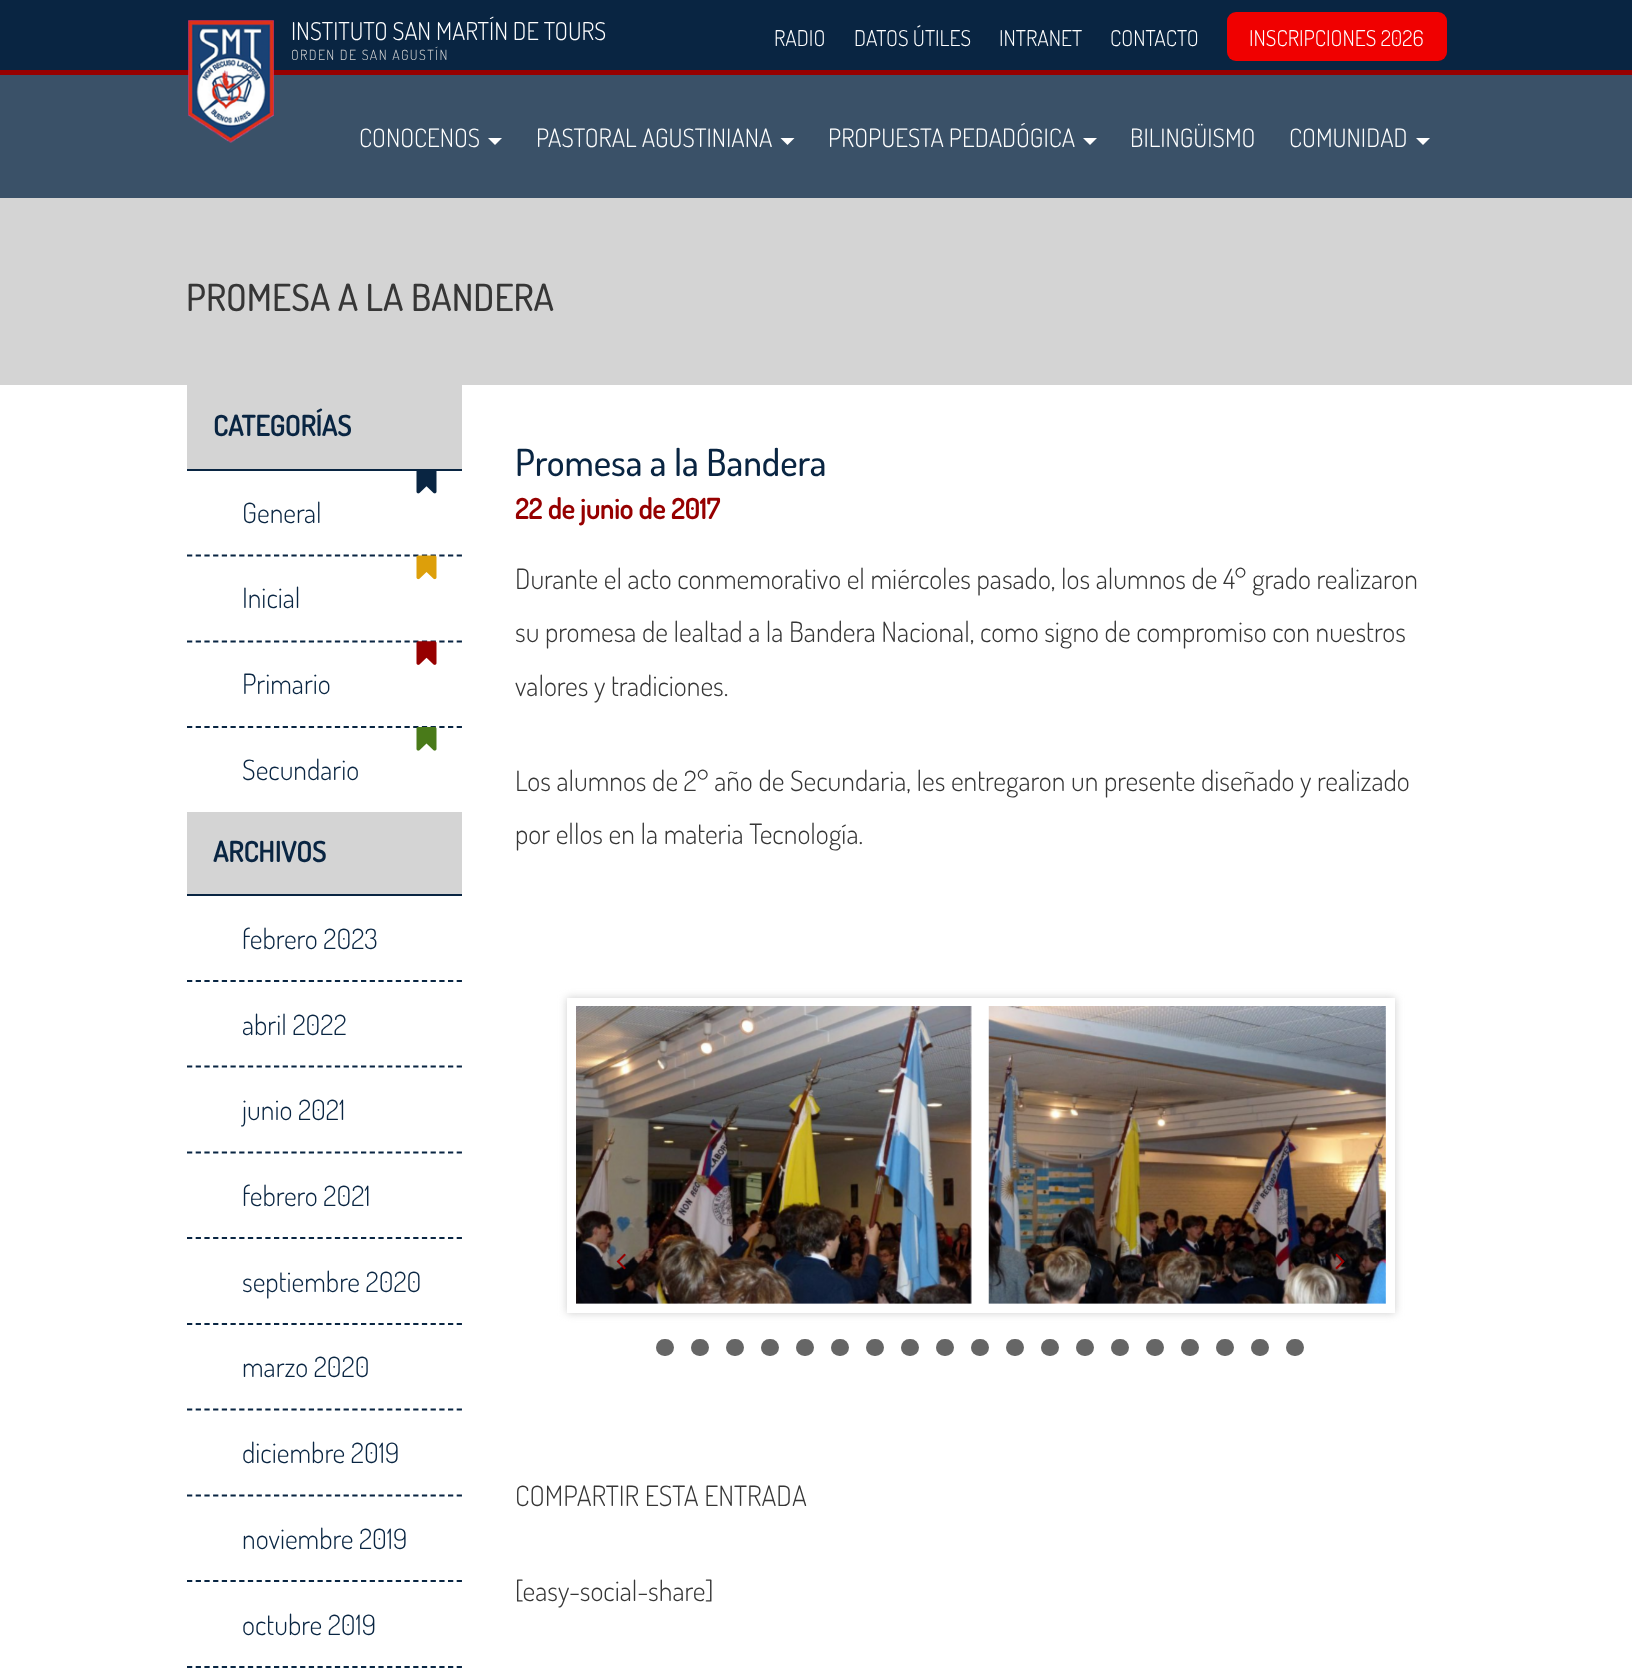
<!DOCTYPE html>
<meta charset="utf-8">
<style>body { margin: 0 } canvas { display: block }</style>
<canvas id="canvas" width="1632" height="1676"></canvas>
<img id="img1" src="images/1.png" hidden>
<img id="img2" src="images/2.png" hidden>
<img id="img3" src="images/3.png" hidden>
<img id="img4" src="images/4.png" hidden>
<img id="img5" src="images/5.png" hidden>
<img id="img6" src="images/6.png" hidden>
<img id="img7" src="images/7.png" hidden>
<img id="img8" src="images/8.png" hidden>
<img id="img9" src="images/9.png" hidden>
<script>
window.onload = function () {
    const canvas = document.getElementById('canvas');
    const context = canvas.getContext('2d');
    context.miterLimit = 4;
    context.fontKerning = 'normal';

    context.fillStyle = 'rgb(255, 255, 255)';
    context.fillRect(0, 0, 1632, 1676);
    context.fillStyle = 'rgb(9, 37, 66)';
    context.fillRect(0, 0, 1632, 70);
    context.fillStyle = 'rgb(240, 0, 0)';
    context.beginPath();
    context.roundRect(1227, 12, 220, 49, 9);
    context.fill();
    context.fillStyle = 'rgb(58, 81, 104)';
    context.fillRect(0, 75, 1632, 123);
    context.fillStyle = 'rgb(150, 0, 0)';
    context.fillRect(0, 70, 1632, 5);
    context.drawImage(document.getElementById('img1'), 188, 20, 86, 123);
    context.fillStyle = 'rgb(255, 255, 255)';
    context.beginPath();
    context.moveTo(488, 138);
    context.lineTo(502, 138);
    context.lineTo(495, 145);
    context.closePath();
    context.fill();
    context.beginPath();
    context.moveTo(780.5, 138);
    context.lineTo(794.5, 138);
    context.lineTo(787.5, 145);
    context.closePath();
    context.fill();
    context.beginPath();
    context.moveTo(1083, 138);
    context.lineTo(1097, 138);
    context.lineTo(1090, 145);
    context.closePath();
    context.fill();
    context.beginPath();
    context.moveTo(1416, 138);
    context.lineTo(1430, 138);
    context.lineTo(1423, 145);
    context.closePath();
    context.fill();
    context.fillStyle = 'rgb(212, 212, 212)';
    context.fillRect(0, 198, 1632, 187);
    context.fillRect(187, 385, 275, 84);
    context.fillStyle = 'rgb(9, 37, 66)';
    context.fillRect(187, 469, 275, 2);
    context.beginPath();
    context.moveTo(187, 555.5);
    context.lineTo(462, 555.5);
    context.strokeStyle = 'rgb(9, 37, 66)';
    context.lineWidth = 1.8;
    context.setLineDash([5.25, 3.45]);
    context.stroke();
    context.drawImage(document.getElementById('img2'), 416, 471, 21, 23);
    context.beginPath();
    context.moveTo(187, 641.5);
    context.lineTo(462, 641.5);
    context.stroke();
    context.drawImage(document.getElementById('img3'), 416, 555, 21, 25);
    context.beginPath();
    context.moveTo(187, 727);
    context.lineTo(462, 727);
    context.stroke();
    context.drawImage(document.getElementById('img4'), 416, 641, 21, 24);
    context.drawImage(document.getElementById('img5'), 416, 727, 21, 24);
    context.fillStyle = 'rgb(212, 212, 212)';
    context.fillRect(187, 812, 275, 82);
    context.fillStyle = 'rgb(9, 37, 66)';
    context.fillRect(187, 894, 275, 2);
    context.beginPath();
    context.moveTo(187, 981);
    context.lineTo(462, 981);
    context.stroke();
    context.beginPath();
    context.moveTo(187, 1066.5);
    context.lineTo(462, 1066.5);
    context.stroke();
    context.beginPath();
    context.moveTo(187, 1152.5);
    context.lineTo(462, 1152.5);
    context.stroke();
    context.beginPath();
    context.moveTo(187, 1238);
    context.lineTo(462, 1238);
    context.stroke();
    context.beginPath();
    context.moveTo(187, 1324);
    context.lineTo(462, 1324);
    context.stroke();
    context.beginPath();
    context.moveTo(187, 1409.5);
    context.lineTo(462, 1409.5);
    context.stroke();
    context.beginPath();
    context.moveTo(187, 1495.5);
    context.lineTo(462, 1495.5);
    context.stroke();
    context.beginPath();
    context.moveTo(187, 1581);
    context.lineTo(462, 1581);
    context.stroke();
    context.beginPath();
    context.moveTo(187, 1667);
    context.lineTo(462, 1667);
    context.stroke();
    context.fillStyle = 'rgb(204, 204, 204)';
    context.filter = 'blur(4.5px)';
    context.beginPath();
    context.rect(567, 998, 828, 315);
    context.fill();
    context.filter = 'none';
    context.fillStyle = 'rgb(255, 255, 255)';
    context.fillRect(567, 998, 828, 315);
    context.drawImage(document.getElementById('img6'), 576, 1006, 396, 298);
    context.drawImage(document.getElementById('img7'), 988, 1006, 398, 298);
    context.drawImage(document.getElementById('img8'), 616, 1253, 10, 17);
    context.drawImage(document.getElementById('img9'), 1335, 1253, 10, 17);
    context.fillStyle = 'rgb(102, 102, 102)';
    context.beginPath();
    context.roundRect(656, 1339, 18, 17, 8.5);
    context.fill();
    context.beginPath();
    context.roundRect(691, 1339, 18, 17, 8.5);
    context.fill();
    context.beginPath();
    context.roundRect(726, 1339, 18, 17, 8.5);
    context.fill();
    context.beginPath();
    context.roundRect(761, 1339, 18, 17, 8.5);
    context.fill();
    context.beginPath();
    context.roundRect(796, 1339, 18, 17, 8.5);
    context.fill();
    context.beginPath();
    context.roundRect(831, 1339, 18, 17, 8.5);
    context.fill();
    context.beginPath();
    context.roundRect(866, 1339, 18, 17, 8.5);
    context.fill();
    context.beginPath();
    context.roundRect(901, 1339, 18, 17, 8.5);
    context.fill();
    context.beginPath();
    context.roundRect(936, 1339, 18, 17, 8.5);
    context.fill();
    context.beginPath();
    context.roundRect(971, 1339, 18, 17, 8.5);
    context.fill();
    context.beginPath();
    context.roundRect(1006, 1339, 18, 17, 8.5);
    context.fill();
    context.beginPath();
    context.roundRect(1041, 1339, 18, 17, 8.5);
    context.fill();
    context.beginPath();
    context.roundRect(1076, 1339, 18, 17, 8.5);
    context.fill();
    context.beginPath();
    context.roundRect(1111, 1339, 18, 17, 8.5);
    context.fill();
    context.beginPath();
    context.roundRect(1146, 1339, 18, 17, 8.5);
    context.fill();
    context.beginPath();
    context.roundRect(1181, 1339, 18, 17, 8.5);
    context.fill();
    context.beginPath();
    context.roundRect(1216, 1339, 18, 17, 8.5);
    context.fill();
    context.beginPath();
    context.roundRect(1251, 1339, 18, 17, 8.5);
    context.fill();
    context.beginPath();
    context.roundRect(1286, 1339, 18, 17, 8.5);
    context.fill();
    context.font = '300 24.5px Dosis';
    context.fillStyle = 'rgb(255, 255, 255)';
    context.fillText('INSTITUTO SAN MARTÍN DE TOURS', 291, 40);
    context.letterSpacing = '1.4px';
    context.font = '300 14px Dosis';
    context.fillStyle = 'rgb(212, 212, 212)';
    context.fillText('ORDEN DE SAN AGUSTÍN', 291, 60);
    context.letterSpacing = '0px';
    context.font = '300 21.75px Dosis';
    context.fillStyle = 'rgb(255, 255, 255)';
    context.fillText('RADIO', 774, 46);
    context.fillText('DATOS ÚTILES', 854, 46);
    context.fillText('INTRANET', 999, 46);
    context.fillText('CONTACTO', 1110, 46);
    context.fillText('INSCRIPCIONES 2026', 1249, 46);
    context.font = '300 25.25px Dosis';
    context.fillText('CONOCENOS', 359, 147);
    context.fillText('PASTORAL AGUSTINIANA', 536, 147);
    context.fillText('PROPUESTA PEDADÓGICA', 828, 147);
    context.fillText('BILINGÜISMO', 1130, 147);
    context.fillText('COMUNIDAD', 1289, 147);
    context.font = '500 37.25px Dosis';
    context.fillStyle = 'rgb(54, 54, 54)';
    context.fillText('PROMESA A LA BANDERA', 186, 311);
    context.font = 'bold 28px Dosis';
    context.fillStyle = 'rgb(9, 37, 66)';
    context.fillText('CATEGORÍAS', 213, 436);
    context.font = '300 28px Dosis';
    context.fillText('General', 242, 523);
    context.fillText('Inicial', 242, 608);
    context.fillText('Primario', 242, 694);
    context.fillText('Secundario', 242, 780);
    context.font = 'bold 28px Dosis';
    context.fillText('ARCHIVOS', 213, 862);
    context.font = '300 28px Dosis';
    context.fillText('febrero 2023', 242, 949);
    context.fillText('abril 2022', 242, 1035);
    context.fillText('junio 2021', 242, 1120);
    context.fillText('febrero 2021', 242, 1206);
    context.fillText('septiembre 2020', 242, 1292);
    context.fillText('marzo 2020', 242, 1377);
    context.fillText('diciembre 2019', 242, 1463);
    context.fillText('noviembre 2019', 242, 1549);
    context.fillText('octubre 2019', 242, 1635);
    context.font = '500 37.25px Dosis';
    context.fillText('Promesa a la Bandera', 515, 476);
    context.font = 'bold 28px Dosis';
    context.fillStyle = 'rgb(150, 0, 0)';
    context.fillText('22 de junio de 2017', 515, 519);
    context.font = '300 28px Dosis';
    context.fillStyle = 'rgb(54, 54, 54)';
    context.fillText('Durante el acto conmemorativo el miércoles pasado, los alumnos de 4° grado realizaron', 515, 589);
    context.fillText('su promesa de lealtad a la Bandera Nacional, como signo de compromiso con nuestros', 515, 642);
    context.fillText('valores y tradiciones.', 515, 696);
    context.fillText('Los alumnos de 2° año de Secundaria, les entregaron un presente diseñado y realizado', 515, 791);
    context.fillText('por ellos en la materia Tecnología.', 515, 844);
    context.fillText('COMPARTIR ESTA ENTRADA', 515, 1506);
    context.fillText('[easy-social-share]', 515, 1601);
};
</script>
